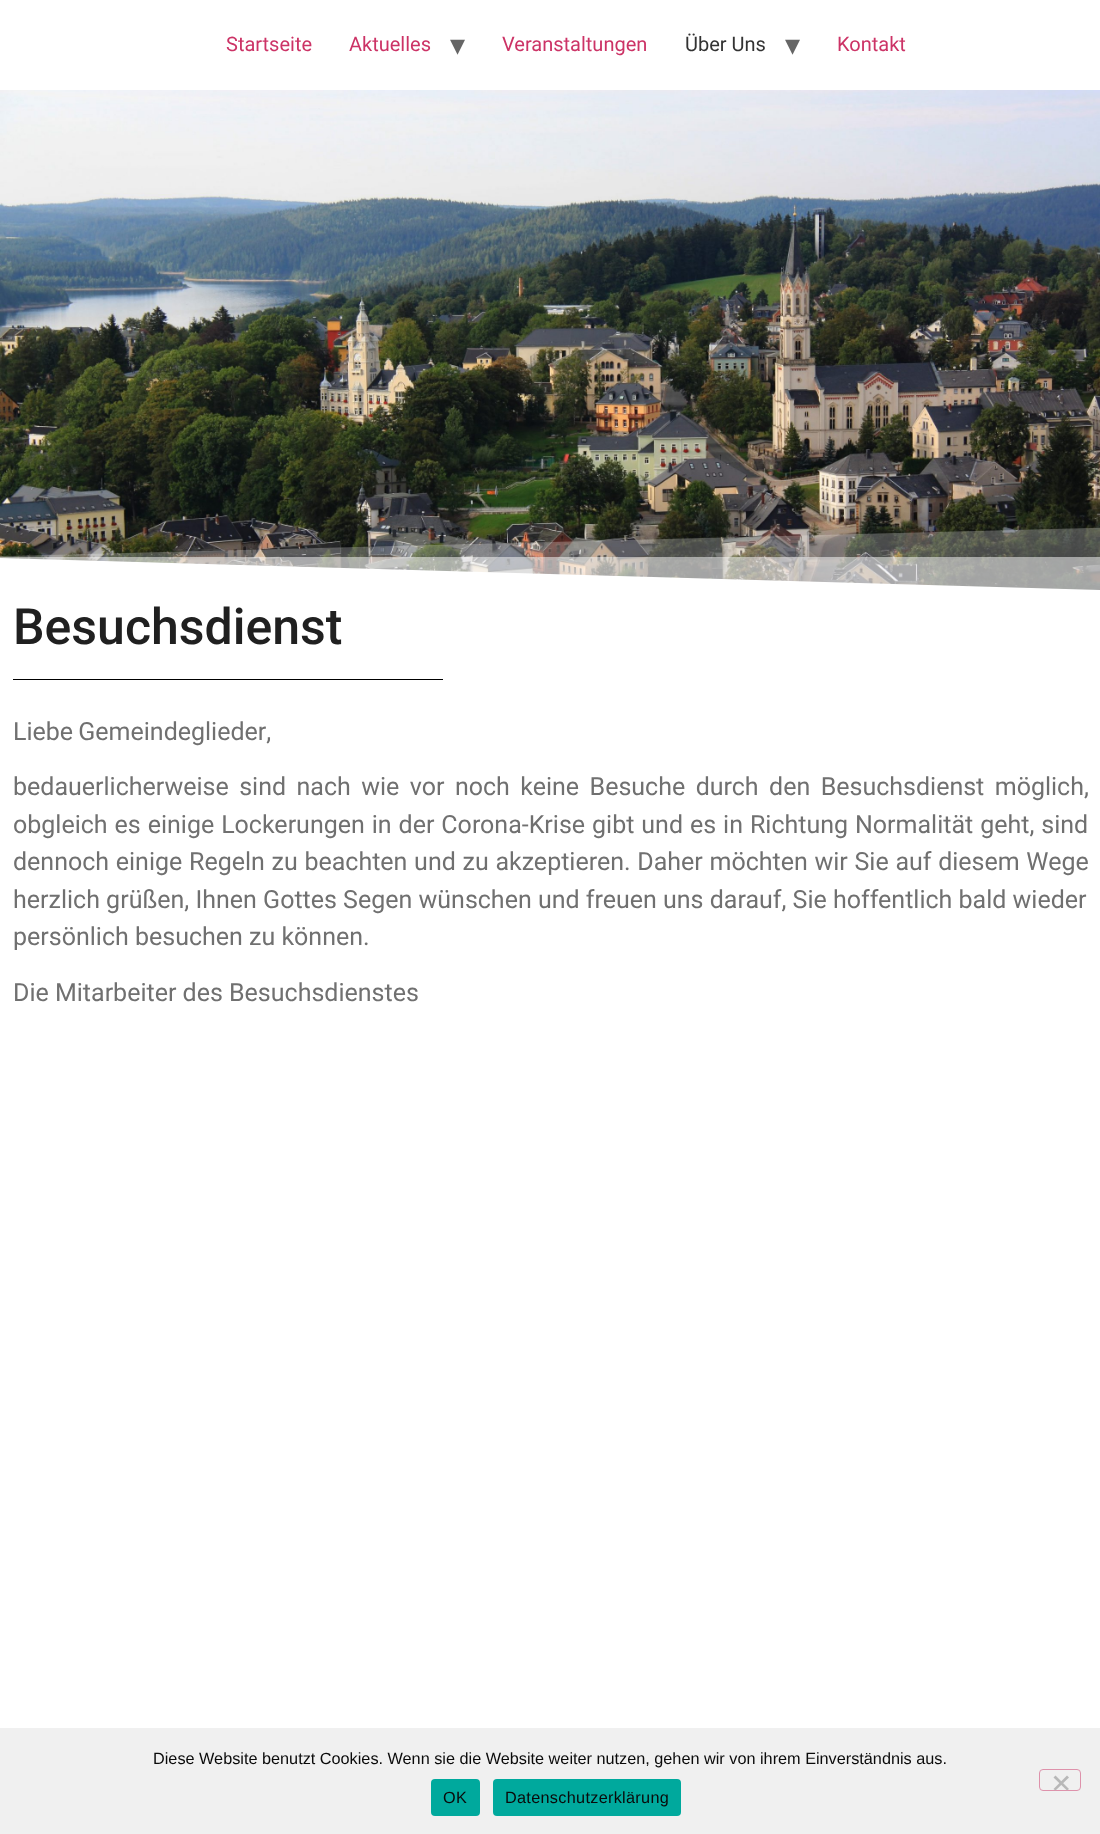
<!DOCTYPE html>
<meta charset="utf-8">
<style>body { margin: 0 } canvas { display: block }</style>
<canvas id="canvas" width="1100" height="1834"></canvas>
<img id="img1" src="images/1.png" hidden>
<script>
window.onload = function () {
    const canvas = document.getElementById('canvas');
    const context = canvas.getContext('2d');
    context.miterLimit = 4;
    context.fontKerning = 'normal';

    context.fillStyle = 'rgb(255, 255, 255)';
    context.fillRect(0, 0, 1100, 1834);
    context.drawImage(document.getElementById('img1'), 0, 90, 1100, 500);
    context.beginPath();
    context.moveTo(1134, 591);
    context.lineTo(-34, 591);
    context.lineTo(-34, 557);
    context.closePath();
    context.fill();
    context.fillStyle = 'rgba(255, 255, 255, 0.5)';
    context.fillRect(0, 557, 1100, 33);
    context.fillStyle = 'rgba(255, 255, 255, 0.25)';
    context.beginPath();
    context.moveTo(-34, 591);
    context.lineTo(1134, 591);
    context.lineTo(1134, 527);
    context.lineTo(-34, 557);
    context.closePath();
    context.fill();
    context.fillStyle = 'rgb(0, 0, 0)';
    context.fillRect(13, 679, 430, 1);
    context.fillStyle = 'rgb(240, 240, 240)';
    context.fillRect(0, 1728, 1100, 106);
    context.beginPath();
    context.roundRect(1039.5, 1769.5, 41, 21, 3.5);
    context.strokeStyle = 'rgb(222, 146, 171)';
    context.stroke();
    context.fillStyle = 'rgb(184, 184, 184)';
    context.beginPath();
    context.moveTo(1067, 1775.5);
    context.lineTo(1069, 1777.5);
    context.lineTo(1055.5, 1790.5);
    context.lineTo(1053.5, 1789);
    context.closePath();
    context.fill();
    context.beginPath();
    context.moveTo(1053.5, 1777.5);
    context.lineTo(1055.5, 1775.5);
    context.lineTo(1069, 1789);
    context.lineTo(1067, 1790.5);
    context.closePath();
    context.fill();
    context.fillStyle = 'rgb(0, 169, 157)';
    context.beginPath();
    context.roundRect(431, 1779, 49, 37, 4);
    context.fill();
    context.beginPath();
    context.roundRect(493, 1779, 188, 37, 4);
    context.fill();
    context.font = '20px Roboto';
    context.fillStyle = 'rgb(204, 51, 102)';
    context.fillText('Startseite', 226, 51);
    context.fillText('Aktuelles', 349, 51);
    context.font = '30px DejaVu Sans';
    context.fillStyle = 'rgb(102, 102, 102)';
    context.fillText('▾', 450, 55);
    context.font = '20px Roboto';
    context.fillStyle = 'rgb(204, 51, 102)';
    context.fillText('Veranstaltungen', 502, 51);
    context.fillStyle = 'rgb(51, 51, 51)';
    context.fillText('Über Uns', 685, 51);
    context.font = '30px DejaVu Sans';
    context.fillStyle = 'rgb(102, 102, 102)';
    context.fillText('▾', 785, 55);
    context.font = '20px Roboto';
    context.fillStyle = 'rgb(204, 51, 102)';
    context.fillText('Kontakt', 837, 51);
    context.font = '500 50px Roboto';
    context.fillStyle = 'rgb(32, 32, 32)';
    context.fillText('Besuchsdienst', 13, 644);
    context.wordSpacing = '-1px';
    context.font = '25px Roboto';
    context.fillStyle = 'rgb(112, 112, 112)';
    context.fillText('Liebe Gemeindeglieder,', 13, 740);
    context.wordSpacing = '4.25px';
    context.fillText('bedauerlicherweise sind nach wie vor noch keine Besuche durch den Besuchsdienst möglich,', 13, 795);
    context.wordSpacing = '0.75px';
    context.fillText('obgleich es einige Lockerungen in der Corona-Krise gibt und es in Richtung Normalität geht, sind', 13, 833);
    context.wordSpacing = '0.5px';
    context.fillText('dennoch einige Regeln zu beachten und zu akzeptieren. Daher möchten wir Sie auf diesem Wege', 13, 870);
    context.wordSpacing = '0px';
    context.fillText('herzlich grüßen, Ihnen Gottes Segen wünschen und freuen uns darauf, Sie hoffentlich bald wieder', 13, 908);
    context.fillText('persönlich besuchen zu können.', 13, 945);
    context.fillText('Die Mitarbeiter des Besuchsdienstes', 13, 1001);
    context.font = '16.25px Liberation Sans';
    context.fillStyle = 'rgb(10, 10, 10)';
    context.fillText('Diese Website benutzt Cookies. Wenn sie die Website weiter nutzen, gehen wir von ihrem Einverständnis aus.', 153, 1764);
    context.letterSpacing = '0.3px';
    context.fillText('OK', 443, 1803);
    context.fillText('Datenschutzerklärung', 505, 1803);
};
</script>
